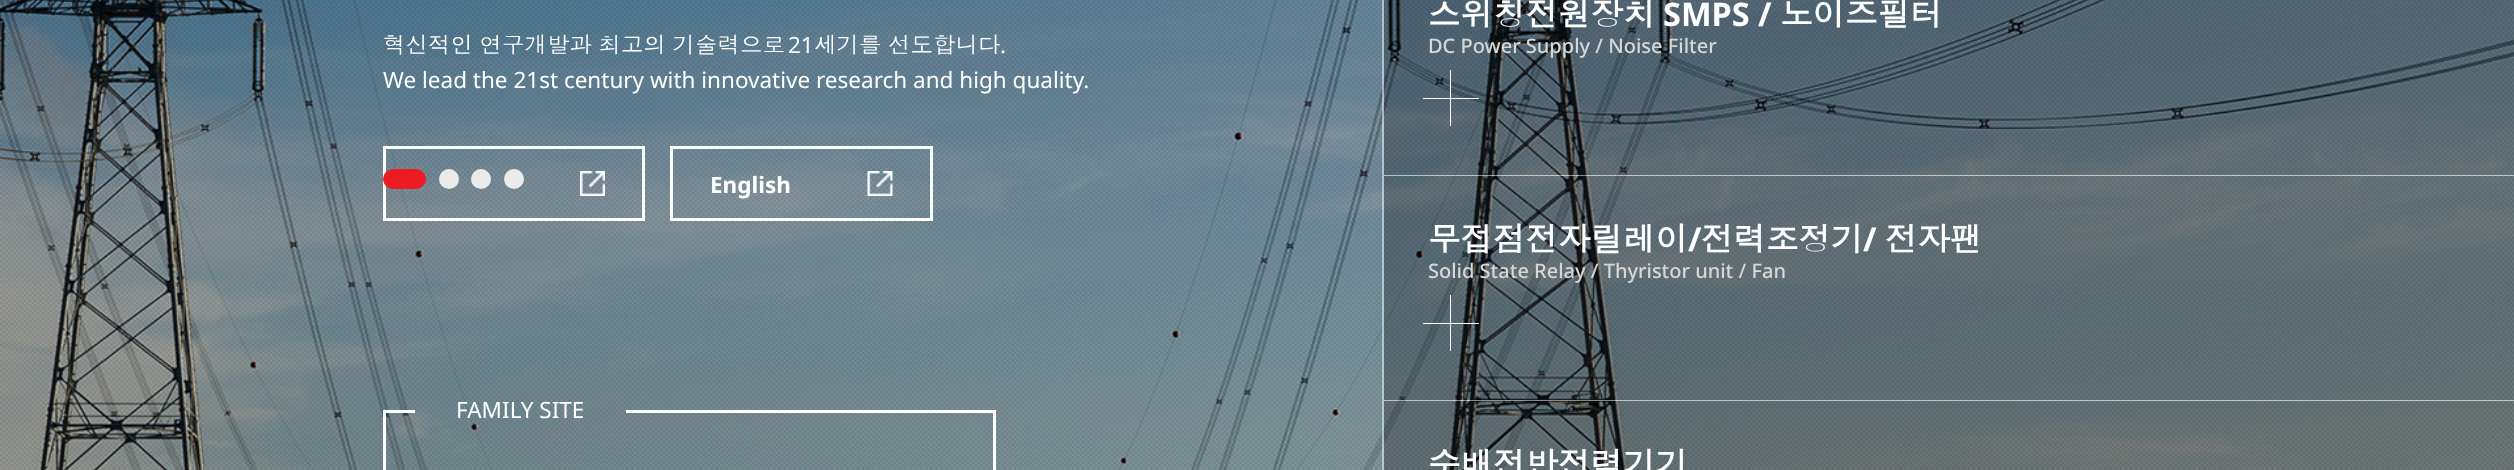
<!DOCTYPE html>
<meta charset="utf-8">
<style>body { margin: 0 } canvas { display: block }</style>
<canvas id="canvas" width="2514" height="470"></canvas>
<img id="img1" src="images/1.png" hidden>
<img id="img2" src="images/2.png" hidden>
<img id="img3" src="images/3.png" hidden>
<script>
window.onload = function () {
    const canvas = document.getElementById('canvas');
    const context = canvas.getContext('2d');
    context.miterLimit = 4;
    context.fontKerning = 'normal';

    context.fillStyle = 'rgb(255, 255, 255)';
    context.fillRect(0, 0, 2514, 470);
    context.drawImage(document.getElementById('img1'), 0, 0, 2514, 470);
    context.strokeStyle = 'rgb(255, 255, 255)';
    context.lineWidth = 3;
    context.strokeRect(384.5, 147.5, 259, 72);
    context.fillStyle = 'rgb(237, 28, 36)';
    context.beginPath();
    context.roundRect(383, 169, 43, 20, 10);
    context.fill();
    context.fillStyle = 'rgb(235, 235, 235)';
    context.beginPath();
    context.arc(449, 179, 10, 0, 2 * Math.PI);
    context.fill();
    context.beginPath();
    context.arc(481, 179, 10, 0, 2 * Math.PI);
    context.fill();
    context.beginPath();
    context.arc(514, 179, 10, 0, 2 * Math.PI);
    context.fill();
    context.drawImage(document.getElementById('img2'), 580, 171, 25, 25);
    context.strokeRect(671.5, 147.5, 260, 72);
    context.drawImage(document.getElementById('img3'), 867, 171, 26, 25);
    context.fillStyle = 'rgb(255, 255, 255)';
    context.fillRect(383, 410, 32, 3);
    context.fillRect(383, 410, 3, 60);
    context.fillRect(626, 410, 369, 3);
    context.fillRect(993, 410, 3, 60);
    context.fillStyle = 'rgba(255, 255, 255, 0.5)';
    context.beginPath();
    context.moveTo(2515, 176);
    context.lineTo(1382, 176);
    context.lineTo(1384, 175);
    context.lineTo(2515, 175);
    context.closePath();
    context.fill();
    context.beginPath();
    context.moveTo(1382, 176);
    context.lineTo(1382, -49);
    context.lineTo(1384, -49);
    context.lineTo(1384, 175);
    context.closePath();
    context.fill();
    context.fillStyle = 'rgba(0, 0, 0, 0.25)';
    context.fillRect(1384, 0, 1130, 175);
    context.fillStyle = 'rgb(255, 255, 255)';
    context.fillRect(1423, 98, 56, 1);
    context.fillRect(1450, 70, 1, 56);
    context.fillStyle = 'rgba(255, 255, 255, 0.5)';
    context.beginPath();
    context.moveTo(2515, 401);
    context.lineTo(1382, 401);
    context.lineTo(1384, 400);
    context.lineTo(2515, 400);
    context.closePath();
    context.fill();
    context.beginPath();
    context.moveTo(1382, 401);
    context.lineTo(1382, 176);
    context.lineTo(1384, 176);
    context.lineTo(1384, 400);
    context.closePath();
    context.fill();
    context.fillStyle = 'rgba(0, 0, 0, 0.25)';
    context.fillRect(1384, 176, 1130, 224);
    context.fillStyle = 'rgb(255, 255, 255)';
    context.fillRect(1423, 323, 56, 1);
    context.fillRect(1450, 295, 1, 56);
    context.fillStyle = 'rgba(255, 255, 255, 0.5)';
    context.beginPath();
    context.moveTo(1382, 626);
    context.lineTo(1382, 401);
    context.lineTo(1384, 401);
    context.lineTo(1384, 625);
    context.closePath();
    context.fill();
    context.fillStyle = 'rgba(0, 0, 0, 0.25)';
    context.fillRect(1384, 401, 1130, 69);
    context.wordSpacing = '-1px';
    context.font = '22.5px Dotum';
    context.fillStyle = 'rgb(255, 255, 255)';
    context.fillText('혁신적인 연구개발과 최고의 기술력으로', 383, 53);
    context.wordSpacing = '0px';
    context.font = '22.5px Noto Sans';
    context.fillText('21', 788, 53);
    context.wordSpacing = '-1px';
    context.font = '22.5px Dotum';
    context.fillText('세기를 선도합니다', 814, 53);
    context.wordSpacing = '0px';
    context.font = '22.5px Noto Sans';
    context.fillText('.', 1000, 53);
    context.fillText('We lead the 21st century with innovative research and high quality.', 383, 88);
    context.font = 'bold 22.5px Noto Sans';
    context.fillText('English', 710, 193);
    context.font = '22.5px Noto Sans';
    context.fillText('FAMILY SITE', 456, 418);
    context.font = 'bold 32.5px Dotum';
    context.fillText('스위칭전원장치', 1428, 26);
    context.font = 'bold 32.5px Noto Sans';
    context.fillText('SMPS /', 1663, 26);
    context.font = 'bold 32.5px Dotum';
    context.fillText('노이즈필터', 1780, 26);
    context.font = '500 20px Noto Sans';
    context.fillStyle = 'rgb(215, 215, 215)';
    context.fillText('DC Power Supply / Noise Filter', 1428, 53);
    context.font = 'bold 32.5px Dotum';
    context.fillStyle = 'rgb(255, 255, 255)';
    context.fillText('무접점전자릴레이', 1428, 251);
    context.font = 'bold 32.5px Noto Sans';
    context.fillText('/', 1688, 251);
    context.font = 'bold 32.5px Dotum';
    context.fillText('전력조정기', 1701, 251);
    context.font = 'bold 32.5px Noto Sans';
    context.fillText('/', 1863, 251);
    context.font = 'bold 32.5px Dotum';
    context.fillText('전자팬', 1885, 251);
    context.font = '500 20px Noto Sans';
    context.fillStyle = 'rgb(215, 215, 215)';
    context.fillText('Solid State Relay / Thyristor unit / Fan', 1428, 278);
    context.font = 'bold 32.5px Dotum';
    context.fillStyle = 'rgb(255, 255, 255)';
    context.fillText('수배전반전력기기', 1428, 476);
};
</script>
